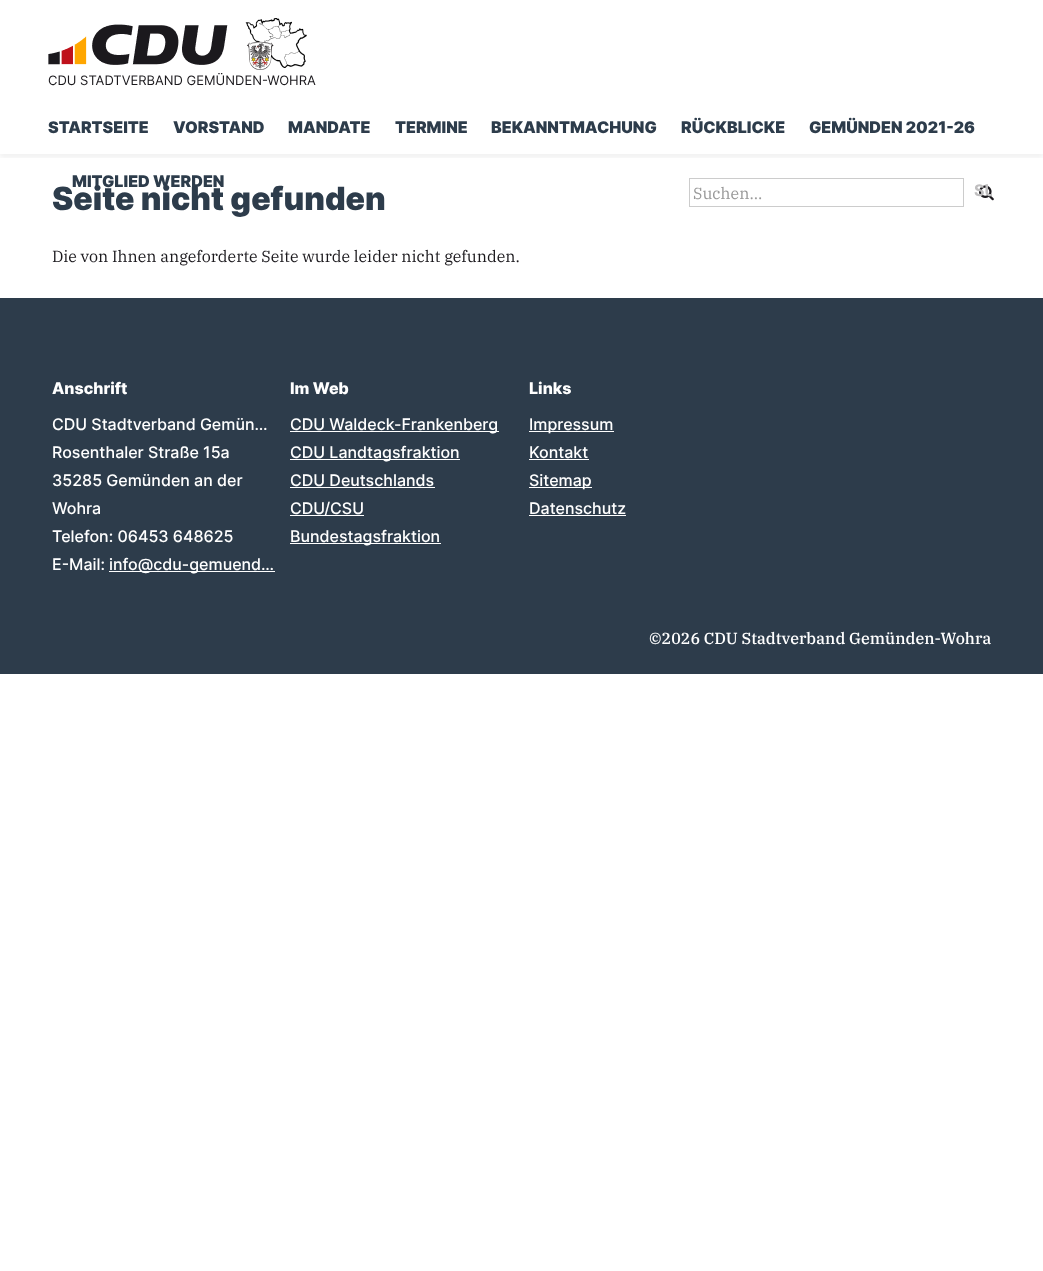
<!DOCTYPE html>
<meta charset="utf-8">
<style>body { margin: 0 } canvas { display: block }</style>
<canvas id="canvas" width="1043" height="1271"></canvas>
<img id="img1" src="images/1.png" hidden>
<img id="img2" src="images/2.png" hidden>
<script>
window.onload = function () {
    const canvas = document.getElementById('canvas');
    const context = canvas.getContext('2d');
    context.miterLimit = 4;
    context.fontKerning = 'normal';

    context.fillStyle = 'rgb(255, 255, 255)';
    context.fillRect(0, 0, 1043, 1271);
    context.save();
    context.beginPath();
    context.rect(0, 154, 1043, 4);
    context.clip();
    context.fillStyle = 'rgba(0, 0, 0, 0.05)';
    context.filter = 'blur(2px)';
    context.beginPath();
    context.rect(0, 4, 1043, 154);
    context.fill();
    context.filter = 'none';
    context.restore();
    context.drawImage(document.getElementById('img1'), 48, 18, 259, 52);
    context.strokeStyle = 'rgb(204, 204, 204)';
    context.strokeRect(689.5, 178.5, 274, 28);
    context.drawImage(document.getElementById('img2'), 979, 185, 15, 16);
    context.fillStyle = 'rgb(45, 60, 75)';
    context.fillRect(0, 298, 1043, 376);
    context.fillStyle = 'rgb(255, 255, 255)';
    context.fillRect(109, 571, 166, 1);
    context.fillRect(290, 431, 209, 1);
    context.fillRect(290, 459, 170, 1);
    context.fillRect(290, 487, 145, 1);
    context.fillRect(290, 515, 74, 1);
    context.fillRect(290, 543, 151, 1);
    context.fillRect(529, 431, 85, 1);
    context.fillRect(529, 459, 60, 1);
    context.fillRect(529, 487, 63, 1);
    context.fillRect(529, 515, 97, 1);
    context.font = '13px Inter';
    context.fillStyle = 'rgb(27, 25, 29)';
    context.fillText('CDU STADTVERBAND GEMÜNDEN-WOHRA', 48, 85);
    context.font = '900 16px Inter';
    context.fillStyle = 'rgb(45, 60, 75)';
    context.fillText('STARTSEITE', 48, 133);
    context.fillText('VORSTAND', 173, 133);
    context.fillText('MANDATE', 288, 133);
    context.fillText('TERMINE', 395, 133);
    context.fillText('BEKANNTMACHUNG', 491, 133);
    context.fillText('RÜCKBLICKE', 681, 133);
    context.fillText('GEMÜNDEN 2021-26', 809, 133);
    context.fillText('MITGLIED WERDEN', 72, 187);
    context.font = '900 32px Inter';
    context.fillText('Seite nicht gefunden', 52, 210);
    context.font = '16px IBM Plex Serif';
    context.fillStyle = 'rgb(27, 25, 29)';
    context.fillText('Die von Ihnen angeforderte Seite wurde leider nicht gefunden.', 52, 262);
    context.fillStyle = 'rgb(153, 153, 153)';
    context.fillText('Suchen...', 693, 199);
    context.save();
    context.beginPath();
    context.rect(974, 178, 18, 22);
    context.clip();
    context.font = 'bold 16px Inter';
    context.fillStyle = 'rgb(191, 190, 191)';
    context.fillText('SU', 974, 196);
    context.restore();
    context.font = '800 16px Inter';
    context.fillStyle = 'rgb(255, 255, 255)';
    context.fillText('Anschrift', 52, 394);
    context.font = '500 16px Inter';
    context.fillText('CDU Stadtverband Gemün…', 52, 430);
    context.fillText('Rosenthaler Straße 15a', 52, 458);
    context.fillText('35285 Gemünden an der', 52, 486);
    context.fillText('Wohra', 52, 514);
    context.fillText('Telefon: 06453 648625', 52, 542);
    context.fillText('E-Mail:', 52, 570);
    context.fillText('info@cdu-gemuend…', 109, 570);
    context.font = '800 16px Inter';
    context.fillText('Im Web', 290, 394);
    context.font = '500 16px Inter';
    context.fillText('CDU Waldeck-Frankenberg', 290, 430);
    context.fillText('CDU Landtagsfraktion', 290, 458);
    context.fillText('CDU Deutschlands', 290, 486);
    context.fillText('CDU/CSU', 290, 514);
    context.fillText('Bundestagsfraktion', 290, 542);
    context.font = '800 16px Inter';
    context.fillText('Links', 529, 394);
    context.font = '500 16px Inter';
    context.fillText('Impressum', 529, 430);
    context.fillText('Kontakt', 529, 458);
    context.fillText('Sitemap', 529, 486);
    context.fillText('Datenschutz', 529, 514);
    context.font = '500 16px IBM Plex Serif';
    context.fillText('©2026 CDU Stadtverband Gemünden-Wohra', 649, 644);
};
</script>
